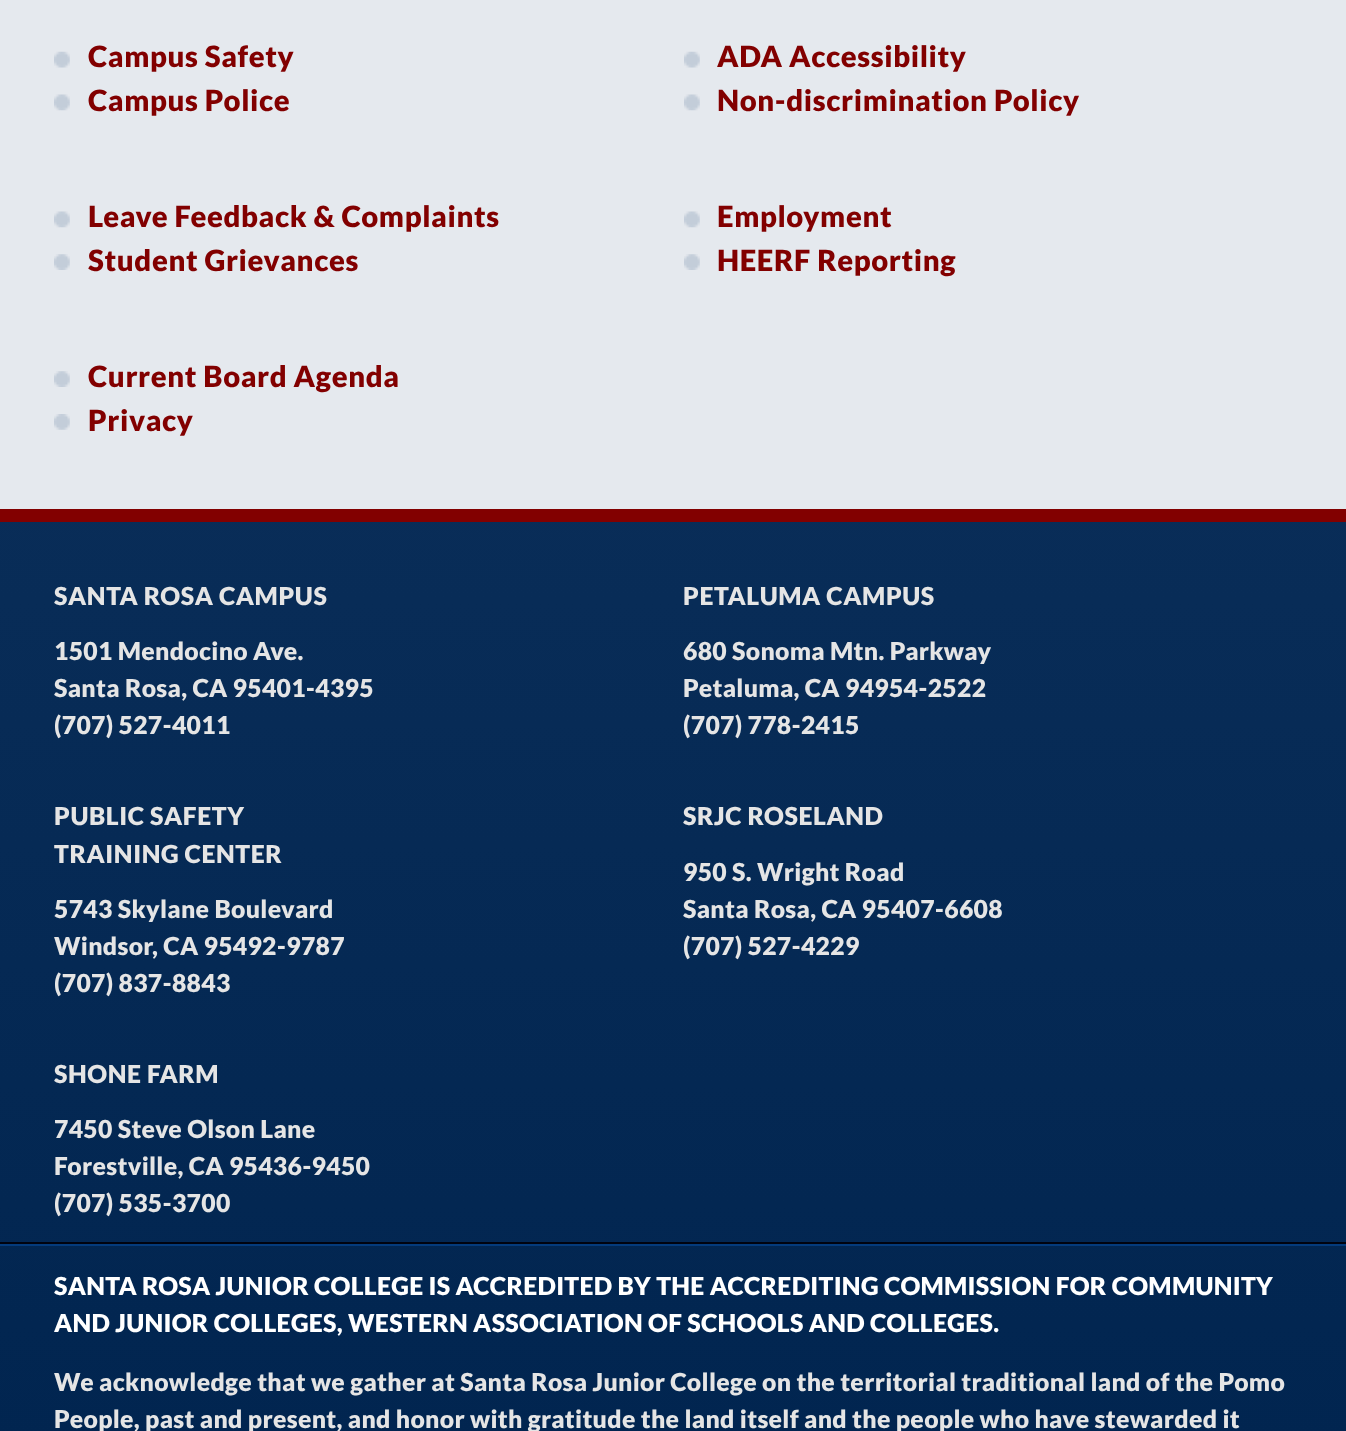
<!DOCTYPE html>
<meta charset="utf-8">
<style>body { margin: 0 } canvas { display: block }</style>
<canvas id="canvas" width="1346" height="1431"></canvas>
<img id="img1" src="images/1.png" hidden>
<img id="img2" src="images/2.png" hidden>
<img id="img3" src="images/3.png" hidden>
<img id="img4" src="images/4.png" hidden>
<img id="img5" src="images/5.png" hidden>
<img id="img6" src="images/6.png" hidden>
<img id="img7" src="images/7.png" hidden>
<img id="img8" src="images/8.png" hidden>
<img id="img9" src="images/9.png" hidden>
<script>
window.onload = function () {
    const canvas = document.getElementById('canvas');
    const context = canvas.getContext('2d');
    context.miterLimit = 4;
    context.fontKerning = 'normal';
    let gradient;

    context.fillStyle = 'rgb(255, 255, 255)';
    context.fillRect(0, 0, 1346, 1431);
    gradient = context.createLinearGradient(674, -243, 674, 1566);
    gradient.addColorStop(0, 'rgb(15, 51, 94)');
    gradient.addColorStop(1, 'rgb(0, 36, 79)');
    context.fillStyle = gradient;
    context.fillRect(0, 522, 1346, 909);
    context.fillStyle = 'rgb(229, 233, 238)';
    context.fillRect(0, 0, 1346, 509);
    context.fillStyle = 'rgb(130, 0, 0)';
    context.fillRect(0, 509, 1346, 13);
    context.drawImage(document.getElementById('img1'), 54, 51, 16, 17);
    context.drawImage(document.getElementById('img2'), 54, 94, 16, 17);
    context.drawImage(document.getElementById('img3'), 684, 51, 16, 17);
    context.drawImage(document.getElementById('img4'), 684, 94, 16, 17);
    context.drawImage(document.getElementById('img5'), 54, 211, 16, 17);
    context.drawImage(document.getElementById('img6'), 54, 254, 16, 16);
    context.drawImage(document.getElementById('img7'), 684, 211, 16, 17);
    context.drawImage(document.getElementById('img8'), 684, 254, 16, 16);
    context.drawImage(document.getElementById('img6'), 54, 371, 16, 16);
    context.drawImage(document.getElementById('img9'), 54, 414, 16, 16);
    context.fillStyle = 'rgb(0, 3, 15)';
    context.fillRect(0, 1242, 1346, 2);
    context.fillStyle = 'rgb(4, 59, 124)';
    context.fillRect(0, 1244, 1346, 2);
    context.letterSpacing = '0.6px';
    context.font = '900 29.25px Lato';
    context.fillStyle = 'rgb(130, 0, 0)';
    context.fillText('Campus Safety', 88, 67);
    context.fillText('Campus Police', 88, 111);
    context.fillText('ADA Accessibility', 717, 67);
    context.fillText('Non-discrimination Policy', 717, 111);
    context.fillText('Leave Feedback & Complaints', 88, 227);
    context.fillText('Student Grievances', 88, 271);
    context.fillText('Employment', 717, 227);
    context.fillText('HEERF Reporting', 717, 271);
    context.fillText('Current Board Agenda', 88, 387);
    context.fillText('Privacy', 88, 431);
    context.font = '900 24.75px Lato';
    context.fillStyle = 'rgb(229, 229, 229)';
    context.fillText('SANTA ROSA CAMPUS', 54, 605);
    context.letterSpacing = '0.3px';
    context.fillText('1501 Mendocino Ave.', 54, 660);
    context.fillText('Santa Rosa, CA 95401-4395', 54, 697);
    context.fillText('(707) 527-4011', 54, 734);
    context.letterSpacing = '0.6px';
    context.fillText('PETALUMA CAMPUS', 683, 605);
    context.letterSpacing = '0.3px';
    context.fillText('680 Sonoma Mtn. Parkway', 683, 660);
    context.fillText('Petaluma, CA 94954-2522', 683, 697);
    context.fillText('(707) 778-2415', 683, 734);
    context.letterSpacing = '0.6px';
    context.fillText('PUBLIC SAFETY', 54, 825);
    context.fillText('TRAINING CENTER', 54, 863);
    context.letterSpacing = '0.3px';
    context.fillText('5743 Skylane Boulevard', 54, 918);
    context.fillText('Windsor, CA 95492-9787', 54, 955);
    context.fillText('(707) 837-8843', 54, 992);
    context.letterSpacing = '0.6px';
    context.fillText('SRJC ROSELAND', 683, 825);
    context.letterSpacing = '0.3px';
    context.fillText('950 S. Wright Road', 683, 881);
    context.fillText('Santa Rosa, CA 95407-6608', 683, 918);
    context.fillText('(707) 527-4229', 683, 955);
    context.letterSpacing = '0.6px';
    context.fillText('SHONE FARM', 54, 1083);
    context.letterSpacing = '0.3px';
    context.fillText('7450 Steve Olson Lane', 54, 1138);
    context.fillText('Forestville, CA 95436-9450', 54, 1175);
    context.fillText('(707) 535-3700', 54, 1212);
    context.fillStyle = 'rgb(255, 255, 255)';
    context.fillText('SANTA ROSA JUNIOR COLLEGE IS ACCREDITED BY THE ACCREDITING COMMISSION FOR COMMUNITY', 54, 1295);
    context.fillText('AND JUNIOR COLLEGES, WESTERN ASSOCIATION OF SCHOOLS AND COLLEGES.', 54, 1332);
    context.fillStyle = 'rgb(229, 229, 229)';
    context.fillText('We acknowledge that we gather at Santa Rosa Junior College on the territorial traditional land of the Pomo', 54, 1391);
    context.fillText('People, past and present, and honor with gratitude the land itself and the people who have stewarded it', 54, 1428);
};
</script>
